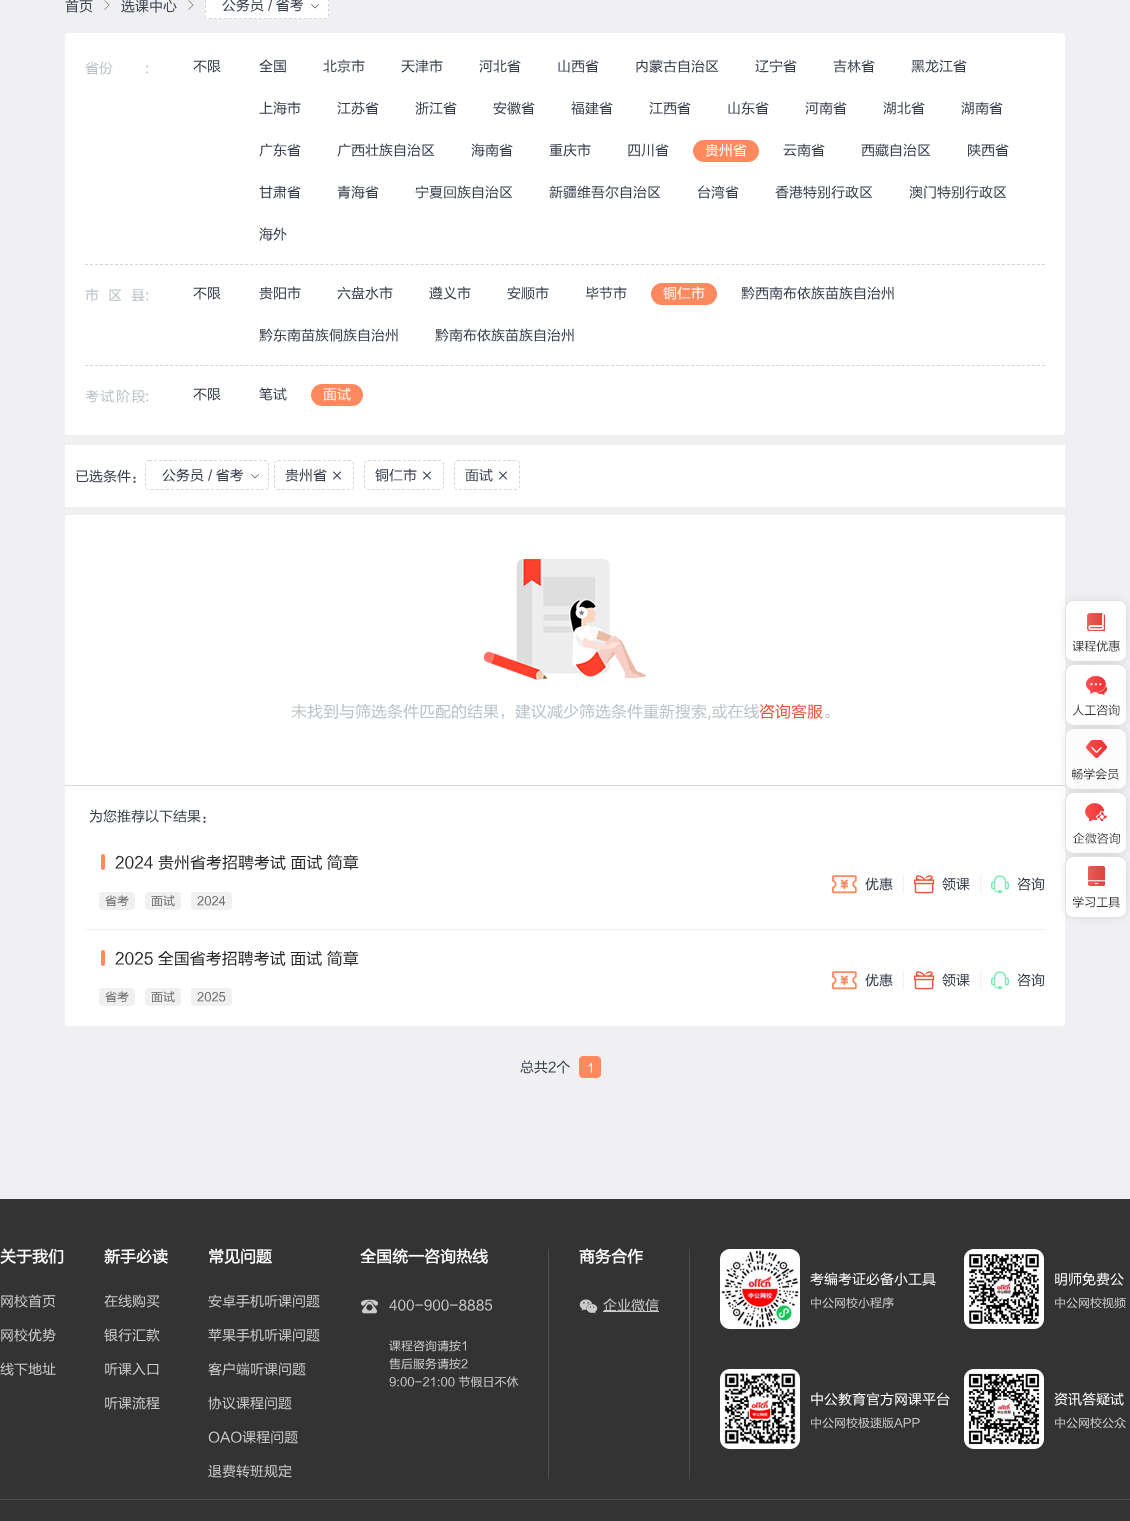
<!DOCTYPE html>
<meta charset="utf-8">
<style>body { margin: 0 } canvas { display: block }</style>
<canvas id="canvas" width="1130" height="1521"></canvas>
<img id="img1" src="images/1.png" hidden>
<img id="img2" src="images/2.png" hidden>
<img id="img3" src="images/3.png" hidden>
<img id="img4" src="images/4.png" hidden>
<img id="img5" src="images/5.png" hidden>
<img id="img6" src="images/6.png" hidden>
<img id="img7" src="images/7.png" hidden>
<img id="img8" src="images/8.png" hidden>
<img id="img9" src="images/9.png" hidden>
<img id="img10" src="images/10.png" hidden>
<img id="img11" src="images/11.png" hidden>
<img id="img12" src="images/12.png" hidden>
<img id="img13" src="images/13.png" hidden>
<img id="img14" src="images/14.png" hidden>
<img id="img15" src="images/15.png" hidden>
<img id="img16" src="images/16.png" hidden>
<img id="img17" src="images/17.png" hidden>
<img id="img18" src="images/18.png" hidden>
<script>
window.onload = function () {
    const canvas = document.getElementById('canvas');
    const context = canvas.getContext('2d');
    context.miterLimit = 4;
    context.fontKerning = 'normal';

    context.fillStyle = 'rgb(240, 240, 242)';
    context.fillRect(0, 0, 1130, 1521);
    context.drawImage(document.getElementById('img1'), 104, 0, 6, 10);
    context.drawImage(document.getElementById('img1'), 188, 0, 6, 10);
    context.fillStyle = 'rgb(255, 255, 255)';
    context.beginPath();
    context.roundRect(205, -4, 124, 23, 4);
    context.fill();
    context.beginPath();
    context.moveTo(209, -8.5);
    context.lineTo(325, -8.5);
    context.bezierCurveTo(327, -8.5, 328.5, -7, 328.5, -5);
    context.lineTo(328.5, 15);
    context.bezierCurveTo(328.5, 17, 327, 18.5, 325, 18.5);
    context.lineTo(209, 18.5);
    context.bezierCurveTo(207, 18.5, 205.5, 17, 205.5, 15);
    context.lineTo(205.5, -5);
    context.bezierCurveTo(205.5, -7, 207, -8.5, 209, -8.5);
    context.closePath();
    context.strokeStyle = 'rgb(213, 214, 217)';
    context.setLineDash([3, 2]);
    context.stroke();
    context.drawImage(document.getElementById('img2'), 311, 4, 8, 5);
    context.beginPath();
    context.roundRect(65, 33, 1000, 402, 4);
    context.fill();
    context.beginPath();
    context.moveTo(85, 264.5);
    context.lineTo(1045, 264.5);
    context.strokeStyle = 'rgb(212, 213, 217)';
    context.setLineDash([3, 2.01]);
    context.stroke();
    context.fillStyle = 'rgb(255, 137, 95)';
    context.beginPath();
    context.roundRect(693, 140, 66, 22, 11);
    context.fill();
    context.beginPath();
    context.moveTo(85, 365.5);
    context.lineTo(1045, 365.5);
    context.stroke();
    context.beginPath();
    context.roundRect(651, 283, 66, 22, 11);
    context.fill();
    context.beginPath();
    context.roundRect(311, 384, 52, 22, 11);
    context.fill();
    context.fillStyle = 'rgb(255, 255, 255)';
    context.fillRect(65, 445, 1000, 62);
    context.beginPath();
    context.moveTo(149, 460.5);
    context.lineTo(265, 460.5);
    context.bezierCurveTo(267, 460.5, 268.5, 462, 268.5, 464);
    context.lineTo(268.5, 486);
    context.bezierCurveTo(268.5, 488, 267, 489.5, 265, 489.5);
    context.lineTo(149, 489.5);
    context.bezierCurveTo(147, 489.5, 145.5, 488, 145.5, 486);
    context.lineTo(145.5, 464);
    context.bezierCurveTo(145.5, 462, 147, 460.5, 149, 460.5);
    context.closePath();
    context.strokeStyle = 'rgb(213, 214, 217)';
    context.setLineDash([3, 2]);
    context.stroke();
    context.drawImage(document.getElementById('img2'), 251, 474, 8, 5);
    context.beginPath();
    context.moveTo(278, 460.5);
    context.lineTo(350, 460.5);
    context.bezierCurveTo(352, 460.5, 353.5, 462, 353.5, 464);
    context.lineTo(353.5, 486);
    context.bezierCurveTo(353.5, 488, 352, 489.5, 350, 489.5);
    context.lineTo(278, 489.5);
    context.bezierCurveTo(276, 489.5, 274.5, 488, 274.5, 486);
    context.lineTo(274.5, 464);
    context.bezierCurveTo(274.5, 462, 276, 460.5, 278, 460.5);
    context.closePath();
    context.strokeStyle = 'rgb(212, 213, 217)';
    context.stroke();
    context.drawImage(document.getElementById('img3'), 333, 471, 8, 9);
    context.beginPath();
    context.moveTo(368, 460.5);
    context.lineTo(440, 460.5);
    context.bezierCurveTo(442, 460.5, 443.5, 462, 443.5, 464);
    context.lineTo(443.5, 486);
    context.bezierCurveTo(443.5, 488, 442, 489.5, 440, 489.5);
    context.lineTo(368, 489.5);
    context.bezierCurveTo(366, 489.5, 364.5, 488, 364.5, 486);
    context.lineTo(364.5, 464);
    context.bezierCurveTo(364.5, 462, 366, 460.5, 368, 460.5);
    context.closePath();
    context.stroke();
    context.drawImage(document.getElementById('img3'), 423, 471, 8, 9);
    context.beginPath();
    context.moveTo(458, 460.5);
    context.lineTo(516, 460.5);
    context.bezierCurveTo(518, 460.5, 519.5, 462, 519.5, 464);
    context.lineTo(519.5, 486);
    context.bezierCurveTo(519.5, 488, 518, 489.5, 516, 489.5);
    context.lineTo(458, 489.5);
    context.bezierCurveTo(456, 489.5, 454.5, 488, 454.5, 486);
    context.lineTo(454.5, 464);
    context.bezierCurveTo(454.5, 462, 456, 460.5, 458, 460.5);
    context.closePath();
    context.stroke();
    context.drawImage(document.getElementById('img3'), 499, 471, 8, 9);
    context.beginPath();
    context.roundRect(65, 515, 1000, 270, [4, 4, 0, 0]);
    context.fill();
    context.drawImage(document.getElementById('img4'), 484, 559, 162, 121);
    context.fillRect(65, 786, 1000, 144);
    context.fillStyle = 'rgb(213, 214, 217)';
    context.fillRect(65, 785, 1000, 1);
    context.fillStyle = 'rgb(240, 240, 240)';
    context.fillRect(85, 929, 960, 1);
    context.fillStyle = 'rgb(255, 137, 95)';
    context.beginPath();
    context.roundRect(101, 854, 4, 16, 2);
    context.fill();
    context.fillStyle = 'rgb(240, 240, 240)';
    context.beginPath();
    context.roundRect(99, 892, 36, 18, 4);
    context.fill();
    context.beginPath();
    context.roundRect(145, 892, 36, 18, 4);
    context.fill();
    context.beginPath();
    context.roundRect(191, 892, 41, 18, 4);
    context.fill();
    context.fillRect(903, 875, 1, 18);
    context.drawImage(document.getElementById('img5'), 832, 875, 25, 19);
    context.fillRect(980, 875, 1, 18);
    context.drawImage(document.getElementById('img6'), 914, 875, 21, 19);
    context.drawImage(document.getElementById('img7'), 991, 875, 19, 19);
    context.fillStyle = 'rgb(255, 255, 255)';
    context.beginPath();
    context.roundRect(65, 930, 1000, 96, [0, 0, 4, 4]);
    context.fill();
    context.fillStyle = 'rgb(255, 137, 95)';
    context.beginPath();
    context.roundRect(101, 950, 4, 16, 2);
    context.fill();
    context.fillStyle = 'rgb(240, 240, 240)';
    context.beginPath();
    context.roundRect(99, 988, 36, 18, 4);
    context.fill();
    context.beginPath();
    context.roundRect(145, 988, 36, 18, 4);
    context.fill();
    context.beginPath();
    context.roundRect(191, 988, 41, 18, 4);
    context.fill();
    context.fillRect(903, 971, 1, 18);
    context.drawImage(document.getElementById('img5'), 832, 971, 25, 19);
    context.fillRect(980, 971, 1, 18);
    context.drawImage(document.getElementById('img6'), 914, 971, 21, 19);
    context.drawImage(document.getElementById('img7'), 991, 971, 19, 19);
    context.fillStyle = 'rgb(255, 137, 95)';
    context.beginPath();
    context.roundRect(579.5, 1056.5, 21, 21, 3.5);
    context.fill();
    context.strokeStyle = 'rgb(255, 137, 95)';
    context.setLineDash([]);
    context.stroke();
    context.fillStyle = 'rgb(51, 51, 51)';
    context.fillRect(0, 1199, 1130, 322);
    context.drawImage(document.getElementById('img8'), 361, 1299, 17, 15);
    context.fillStyle = 'rgb(77, 77, 77)';
    context.fillRect(548, 1249, 1, 230);
    context.drawImage(document.getElementById('img9'), 579, 1299, 19, 15);
    context.fillStyle = 'rgb(204, 204, 204)';
    context.fillRect(603, 1311, 56, 1);
    context.fillStyle = 'rgb(77, 77, 77)';
    context.fillRect(689, 1249, 1, 230);
    context.drawImage(document.getElementById('img10'), 720, 1249, 80, 80);
    context.drawImage(document.getElementById('img11'), 964, 1249, 80, 80);
    context.drawImage(document.getElementById('img12'), 720, 1369, 80, 80);
    context.drawImage(document.getElementById('img13'), 964, 1369, 80, 80);
    context.fillRect(0, 1499, 1130, 1);
    context.fillStyle = 'rgba(153, 153, 153, 0.3)';
    context.filter = 'blur(5px)';
    context.beginPath();
    context.roundRect(1066, 601, 60, 60, 10);
    context.fill();
    context.filter = 'none';
    context.drawImage(document.getElementById('img14'), 1066, 601, 60, 60);
    context.filter = 'blur(5px)';
    context.beginPath();
    context.roundRect(1066, 665, 60, 60, 10);
    context.fill();
    context.filter = 'none';
    context.drawImage(document.getElementById('img15'), 1066, 665, 60, 60);
    context.save();
    context.beginPath();
    context.moveTo(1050, 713);
    context.lineTo(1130, 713);
    context.lineTo(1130, 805);
    context.lineTo(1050, 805);
    context.closePath();
    context.moveTo(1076, 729);
    context.lineTo(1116, 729);
    context.bezierCurveTo(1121.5, 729, 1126, 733.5, 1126, 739);
    context.lineTo(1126, 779);
    context.bezierCurveTo(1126, 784.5, 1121.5, 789, 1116, 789);
    context.lineTo(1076, 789);
    context.bezierCurveTo(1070.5, 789, 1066, 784.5, 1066, 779);
    context.lineTo(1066, 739);
    context.bezierCurveTo(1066, 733.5, 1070.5, 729, 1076, 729);
    context.closePath();
    context.clip('evenodd');
    context.filter = 'blur(5px)';
    context.beginPath();
    context.roundRect(1066, 729, 60, 60, 10);
    context.fill();
    context.filter = 'none';
    context.restore();
    context.drawImage(document.getElementById('img16'), 1066, 729, 60, 60);
    context.filter = 'blur(5px)';
    context.beginPath();
    context.roundRect(1066, 793, 60, 60, 10);
    context.fill();
    context.filter = 'none';
    context.drawImage(document.getElementById('img17'), 1066, 793, 60, 60);
    context.filter = 'blur(5px)';
    context.beginPath();
    context.roundRect(1066, 857, 60, 60, 10);
    context.fill();
    context.filter = 'none';
    context.drawImage(document.getElementById('img18'), 1066, 857, 60, 60);
    context.font = '14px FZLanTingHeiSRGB';
    context.fillStyle = 'rgb(53, 60, 73)';
    context.fillText('首页', 65, 11);
    context.fillText('选课中心', 121, 11);
    context.fillText('公务员 / 省考', 222, 10);
    context.fillStyle = 'rgb(185, 194, 200)';
    context.fillText('省份', 85, 73);
    context.fillText(':', 145, 73);
    context.fillStyle = 'rgb(53, 60, 73)';
    context.fillText('不限', 193, 71);
    context.fillText('全国', 259, 71);
    context.fillText('北京市', 323, 71);
    context.fillText('天津市', 401, 71);
    context.fillText('河北省', 479, 71);
    context.fillText('山西省', 557, 71);
    context.fillText('内蒙古自治区', 635, 71);
    context.fillText('辽宁省', 755, 71);
    context.fillText('吉林省', 833, 71);
    context.fillText('黑龙江省', 911, 71);
    context.fillText('上海市', 259, 113);
    context.fillText('江苏省', 337, 113);
    context.fillText('浙江省', 415, 113);
    context.fillText('安徽省', 493, 113);
    context.fillText('福建省', 571, 113);
    context.fillText('江西省', 649, 113);
    context.fillText('山东省', 727, 113);
    context.fillText('河南省', 805, 113);
    context.fillText('湖北省', 883, 113);
    context.fillText('湖南省', 961, 113);
    context.fillText('广东省', 259, 155);
    context.fillText('广西壮族自治区', 337, 155);
    context.fillText('海南省', 471, 155);
    context.fillText('重庆市', 549, 155);
    context.fillText('四川省', 627, 155);
    context.fillStyle = 'rgb(255, 255, 255)';
    context.fillText('贵州省', 705, 155);
    context.fillStyle = 'rgb(53, 60, 73)';
    context.fillText('云南省', 783, 155);
    context.fillText('西藏自治区', 861, 155);
    context.fillText('陕西省', 967, 155);
    context.fillText('甘肃省', 259, 197);
    context.fillText('青海省', 337, 197);
    context.fillText('宁夏回族自治区', 415, 197);
    context.fillText('新疆维吾尔自治区', 549, 197);
    context.fillText('台湾省', 697, 197);
    context.fillText('香港特别行政区', 775, 197);
    context.fillText('澳门特别行政区', 909, 197);
    context.fillText('海外', 259, 239);
    context.letterSpacing = '9px';
    context.fillStyle = 'rgb(185, 194, 200)';
    context.fillText('市区县', 85, 300);
    context.letterSpacing = '0px';
    context.fillText(':', 145, 300);
    context.fillStyle = 'rgb(53, 60, 73)';
    context.fillText('不限', 193, 298);
    context.fillText('贵阳市', 259, 298);
    context.fillText('六盘水市', 337, 298);
    context.fillText('遵义市', 429, 298);
    context.fillText('安顺市', 507, 298);
    context.fillText('毕节市', 585, 298);
    context.fillStyle = 'rgb(255, 255, 255)';
    context.fillText('铜仁市', 663, 298);
    context.fillStyle = 'rgb(53, 60, 73)';
    context.fillText('黔西南布依族苗族自治州', 741, 298);
    context.fillText('黔东南苗族侗族自治州', 259, 340);
    context.fillText('黔南布依族苗族自治州', 435, 340);
    context.letterSpacing = '1.5px';
    context.fillStyle = 'rgb(185, 194, 200)';
    context.fillText('考试阶段', 85, 401);
    context.letterSpacing = '0px';
    context.fillText(':', 145, 401);
    context.fillStyle = 'rgb(53, 60, 73)';
    context.fillText('不限', 193, 399);
    context.fillText('笔试', 259, 399);
    context.fillStyle = 'rgb(255, 255, 255)';
    context.fillText('面试', 323, 399);
    context.fillStyle = 'rgb(53, 60, 73)';
    context.fillText('已选条件：', 75, 481);
    context.fillText('公务员 / 省考', 162, 480);
    context.fillText('贵州省', 285, 480);
    context.fillText('铜仁市', 375, 480);
    context.fillText('面试', 465, 480);
    context.font = '16px FZLanTingHeiSRGB';
    context.fillStyle = 'rgb(185, 194, 200)';
    context.fillText('未找到与筛选条件匹配的结果，建议减少筛选条件重新搜索,或在线', 291, 717);
    context.fillStyle = 'rgb(238, 83, 61)';
    context.fillText('咨询客服', 759, 717);
    context.fillStyle = 'rgb(185, 194, 200)';
    context.fillText('。', 823, 717);
    context.font = '14px FZLanTingHeiSRGB';
    context.fillStyle = 'rgb(53, 60, 73)';
    context.fillText('为您推荐以下结果：', 89, 821);
    context.font = '16px FZLanTingHeiSRGB';
    context.fillStyle = 'rgb(38, 38, 38)';
    context.fillText('2024 贵州省考招聘考试 面试 简章', 115, 868);
    context.font = '12px FZLanTingHeiSRGB';
    context.fillStyle = 'rgb(102, 102, 102)';
    context.fillText('省考', 105, 905);
    context.fillText('面试', 151, 905);
    context.fillText('2024', 197, 905);
    context.font = '14px FZLanTingHeiSRGB';
    context.fillStyle = 'rgb(53, 60, 73)';
    context.fillText('优惠', 865, 889);
    context.fillText('领课', 942, 889);
    context.fillText('咨询', 1017, 889);
    context.font = '16px FZLanTingHeiSRGB';
    context.fillStyle = 'rgb(38, 38, 38)';
    context.fillText('2025 全国省考招聘考试 面试 简章', 115, 964);
    context.font = '12px FZLanTingHeiSRGB';
    context.fillStyle = 'rgb(102, 102, 102)';
    context.fillText('省考', 105, 1001);
    context.fillText('面试', 151, 1001);
    context.fillText('2025', 197, 1001);
    context.font = '14px FZLanTingHeiSRGB';
    context.fillStyle = 'rgb(53, 60, 73)';
    context.fillText('优惠', 865, 985);
    context.fillText('领课', 942, 985);
    context.fillText('咨询', 1017, 985);
    context.fillText('总共2个', 520, 1072);
    context.font = '12px FZLanTingHeiSRGB';
    context.fillStyle = 'rgb(255, 255, 255)';
    context.fillText('1', 587, 1072);
    context.font = 'bold 16px FZLanTingHeiSRGB';
    context.fillText('关于我们', 0, 1262);
    context.font = '14px FZLanTingHeiSRGB';
    context.fillStyle = 'rgb(204, 204, 204)';
    context.fillText('网校首页', 0, 1306);
    context.fillText('网校优势', 0, 1340);
    context.fillText('线下地址', 0, 1374);
    context.font = 'bold 16px FZLanTingHeiSRGB';
    context.fillStyle = 'rgb(255, 255, 255)';
    context.fillText('新手必读', 104, 1262);
    context.font = '14px FZLanTingHeiSRGB';
    context.fillStyle = 'rgb(204, 204, 204)';
    context.fillText('在线购买', 104, 1306);
    context.fillText('银行汇款', 104, 1340);
    context.fillText('听课入口', 104, 1374);
    context.fillText('听课流程', 104, 1408);
    context.font = 'bold 16px FZLanTingHeiSRGB';
    context.fillStyle = 'rgb(255, 255, 255)';
    context.fillText('常见问题', 208, 1262);
    context.font = '14px FZLanTingHeiSRGB';
    context.fillStyle = 'rgb(204, 204, 204)';
    context.fillText('安卓手机听课问题', 208, 1306);
    context.fillText('苹果手机听课问题', 208, 1340);
    context.fillText('客户端听课问题', 208, 1374);
    context.fillText('协议课程问题', 208, 1408);
    context.fillText('OAO课程问题', 208, 1442);
    context.fillText('退费转班规定', 208, 1476);
    context.font = 'bold 16px FZLanTingHeiSRGB';
    context.fillStyle = 'rgb(255, 255, 255)';
    context.fillText('全国统一咨询热线', 360, 1262);
    context.font = '14px FZLanTingHeiSRGB';
    context.fillStyle = 'rgb(204, 204, 204)';
    context.fillText('400-900-8885', 389, 1310);
    context.font = '12px FZLanTingHeiSRGB';
    context.fillText('课程咨询请按1', 389, 1350);
    context.fillText('售后服务请按2', 389, 1368);
    context.fillText('9:00-21:00 节假日不休', 389, 1386);
    context.font = 'bold 16px FZLanTingHeiSRGB';
    context.fillStyle = 'rgb(255, 255, 255)';
    context.fillText('商务合作', 579, 1262);
    context.font = '14px FZLanTingHeiSRGB';
    context.fillStyle = 'rgb(204, 204, 204)';
    context.fillText('企业微信', 603, 1310);
    context.fillStyle = 'rgb(255, 255, 255)';
    context.fillText('考编考证必备小工具', 810, 1284);
    context.font = '12px FZLanTingHeiSRGB';
    context.fillStyle = 'rgb(204, 204, 204)';
    context.fillText('中公网校小程序', 810, 1307);
    context.font = '14px FZLanTingHeiSRGB';
    context.fillStyle = 'rgb(255, 255, 255)';
    context.fillText('明师免费公', 1054, 1284);
    context.font = '12px FZLanTingHeiSRGB';
    context.fillStyle = 'rgb(204, 204, 204)';
    context.fillText('中公网校视频', 1054, 1307);
    context.font = '14px FZLanTingHeiSRGB';
    context.fillStyle = 'rgb(255, 255, 255)';
    context.fillText('中公教育官方网课平台', 810, 1404);
    context.font = '12px FZLanTingHeiSRGB';
    context.fillStyle = 'rgb(204, 204, 204)';
    context.fillText('中公网校极速版APP', 810, 1427);
    context.font = '14px FZLanTingHeiSRGB';
    context.fillStyle = 'rgb(255, 255, 255)';
    context.fillText('资讯答疑试', 1054, 1404);
    context.font = '12px FZLanTingHeiSRGB';
    context.fillStyle = 'rgb(204, 204, 204)';
    context.fillText('中公网校公众', 1054, 1427);
};
</script>
